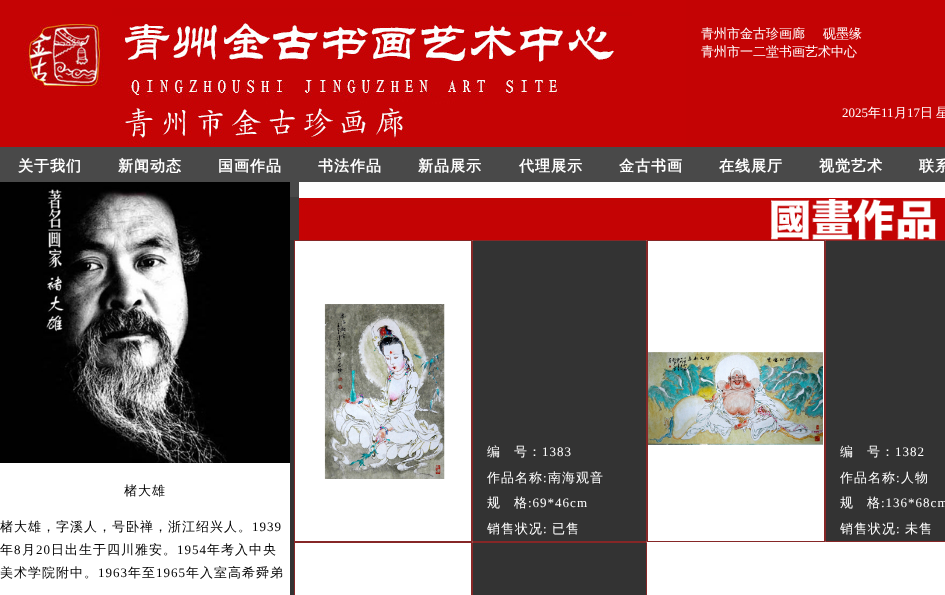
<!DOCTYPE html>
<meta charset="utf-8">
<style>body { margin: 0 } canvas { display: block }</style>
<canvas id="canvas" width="945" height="595"></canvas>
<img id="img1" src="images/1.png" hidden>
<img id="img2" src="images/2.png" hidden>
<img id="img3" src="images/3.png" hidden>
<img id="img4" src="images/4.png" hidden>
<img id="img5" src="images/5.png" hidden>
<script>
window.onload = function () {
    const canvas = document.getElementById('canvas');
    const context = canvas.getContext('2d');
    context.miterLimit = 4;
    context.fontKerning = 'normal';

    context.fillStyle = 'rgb(255, 255, 255)';
    context.fillRect(0, 0, 945, 595);
    context.drawImage(document.getElementById('img1'), 0, 0, 686, 147);
    context.fillStyle = 'rgb(196, 3, 4)';
    context.fillRect(686, 0, 259, 147);
    context.fillStyle = 'rgb(73, 73, 73)';
    context.fillRect(0, 147, 945, 35);
    context.drawImage(document.getElementById('img2'), 0, 182, 290, 281);
    context.fillRect(290, 182, 9, 15);
    context.drawImage(document.getElementById('img3'), 290, 197, 655, 43);
    context.fillStyle = 'rgb(51, 51, 51)';
    context.fillRect(290, 240, 4, 355);
    context.strokeStyle = 'rgb(134, 39, 39)';
    context.strokeRect(294.5, 240.5, 177, 301);
    context.drawImage(document.getElementById('img4'), 324, 304, 121, 175);
    context.beginPath();
    context.rect(472.5, 240.5, 174, 301);
    context.fill();
    context.stroke();
    context.strokeRect(647.5, 240.5, 177, 301);
    context.drawImage(document.getElementById('img5'), 648, 352, 175, 93);
    context.beginPath();
    context.rect(825.5, 240.5, 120, 301);
    context.fill();
    context.stroke();
    context.strokeRect(294.5, 542.5, 177, 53);
    context.beginPath();
    context.rect(472.5, 542.5, 174, 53);
    context.fill();
    context.stroke();
    context.font = '500 13px WenQuanYi Zen Hei';
    context.fillStyle = 'rgb(255, 255, 255)';
    context.fillText('青州市金古珍画廊', 701, 38);
    context.fillText('砚墨缘', 823, 38);
    context.fillText('青州市一二堂书画艺术中心', 701, 56);
    context.font = '13px Liberation Serif';
    context.fillText('2025', 842, 117);
    context.font = '500 13px WenQuanYi Zen Hei';
    context.fillText('年', 868, 117);
    context.font = '13px Liberation Serif';
    context.fillText('11', 881, 117);
    context.font = '500 13px WenQuanYi Zen Hei';
    context.fillText('月', 894, 117);
    context.font = '13px Liberation Serif';
    context.fillText('17', 907, 117);
    context.wordSpacing = '-1px';
    context.font = '500 13px WenQuanYi Zen Hei';
    context.fillText('日 星', 920, 117);
    context.letterSpacing = '1px';
    context.wordSpacing = '0px';
    context.font = 'bold 15px WenQuanYi Zen Hei';
    context.fillText('关于我们', 18, 171);
    context.fillText('新闻动态', 118, 171);
    context.fillText('国画作品', 218, 171);
    context.fillText('书法作品', 318, 171);
    context.fillText('新品展示', 418, 171);
    context.fillText('代理展示', 519, 171);
    context.fillText('金古书画', 619, 171);
    context.fillText('在线展厅', 719, 171);
    context.fillText('视觉艺术', 819, 171);
    context.fillText('联系', 919, 171);
    context.font = '500 13px WenQuanYi Zen Hei';
    context.fillStyle = 'rgb(0, 0, 0)';
    context.fillText('楮大雄', 124, 495);
    context.fillText('楮大雄，字溪人，号卧禅，浙江绍兴人。', 0, 531);
    context.font = '13px Liberation Serif';
    context.fillText('1939', 252, 531);
    context.font = '500 13px WenQuanYi Zen Hei';
    context.fillText('年', 0, 554);
    context.font = '13px Liberation Serif';
    context.fillText('8', 14, 554);
    context.font = '500 13px WenQuanYi Zen Hei';
    context.fillText('月', 22, 554);
    context.font = '13px Liberation Serif';
    context.fillText('20', 36, 554);
    context.font = '500 13px WenQuanYi Zen Hei';
    context.fillText('日出生于四川雅安。', 51, 554);
    context.font = '13px Liberation Serif';
    context.fillText('1954', 177, 554);
    context.font = '500 13px WenQuanYi Zen Hei';
    context.fillText('年考入中央', 207, 554);
    context.fillText('美术学院附中。', 0, 577);
    context.font = '13px Liberation Serif';
    context.fillText('1963', 98, 577);
    context.font = '500 13px WenQuanYi Zen Hei';
    context.fillText('年至', 128, 577);
    context.font = '13px Liberation Serif';
    context.fillText('1965', 156, 577);
    context.font = '500 13px WenQuanYi Zen Hei';
    context.fillText('年入室高希舜弟', 186, 577);
    context.fillStyle = 'rgb(255, 255, 255)';
    context.fillText('编', 487, 456);
    context.fillText('号：', 514, 456);
    context.font = '13px Liberation Serif';
    context.fillText('1383', 542, 456);
    context.font = '500 13px WenQuanYi Zen Hei';
    context.fillText('作品名称 南海观音', 487, 482);
    context.font = '13px Liberation Serif';
    context.fillText(':', 543, 482);
    context.font = '500 13px WenQuanYi Zen Hei';
    context.fillText('规', 487, 507);
    context.fillText('格', 514, 507);
    context.font = '13px Liberation Serif';
    context.fillText(':69*46cm', 528, 507);
    context.font = '500 13px WenQuanYi Zen Hei';
    context.fillText('销售状况', 487, 533);
    context.font = '13px Liberation Serif';
    context.fillText(':', 543, 533);
    context.font = '500 13px WenQuanYi Zen Hei';
    context.fillText('已售', 552, 533);
    context.fillText('编', 840, 456);
    context.fillText('号：', 867, 456);
    context.font = '13px Liberation Serif';
    context.fillText('1382', 895, 456);
    context.font = '500 13px WenQuanYi Zen Hei';
    context.fillText('作品名称 人物', 840, 482);
    context.font = '13px Liberation Serif';
    context.fillText(':', 896, 482);
    context.font = '500 13px WenQuanYi Zen Hei';
    context.fillText('规', 840, 507);
    context.fillText('格', 867, 507);
    context.font = '13px Liberation Serif';
    context.fillText(':136*68cm', 881, 507);
    context.font = '500 13px WenQuanYi Zen Hei';
    context.fillText('销售状况', 840, 533);
    context.font = '13px Liberation Serif';
    context.fillText(':', 896, 533);
    context.font = '500 13px WenQuanYi Zen Hei';
    context.fillText('未售', 905, 533);
};
</script>
